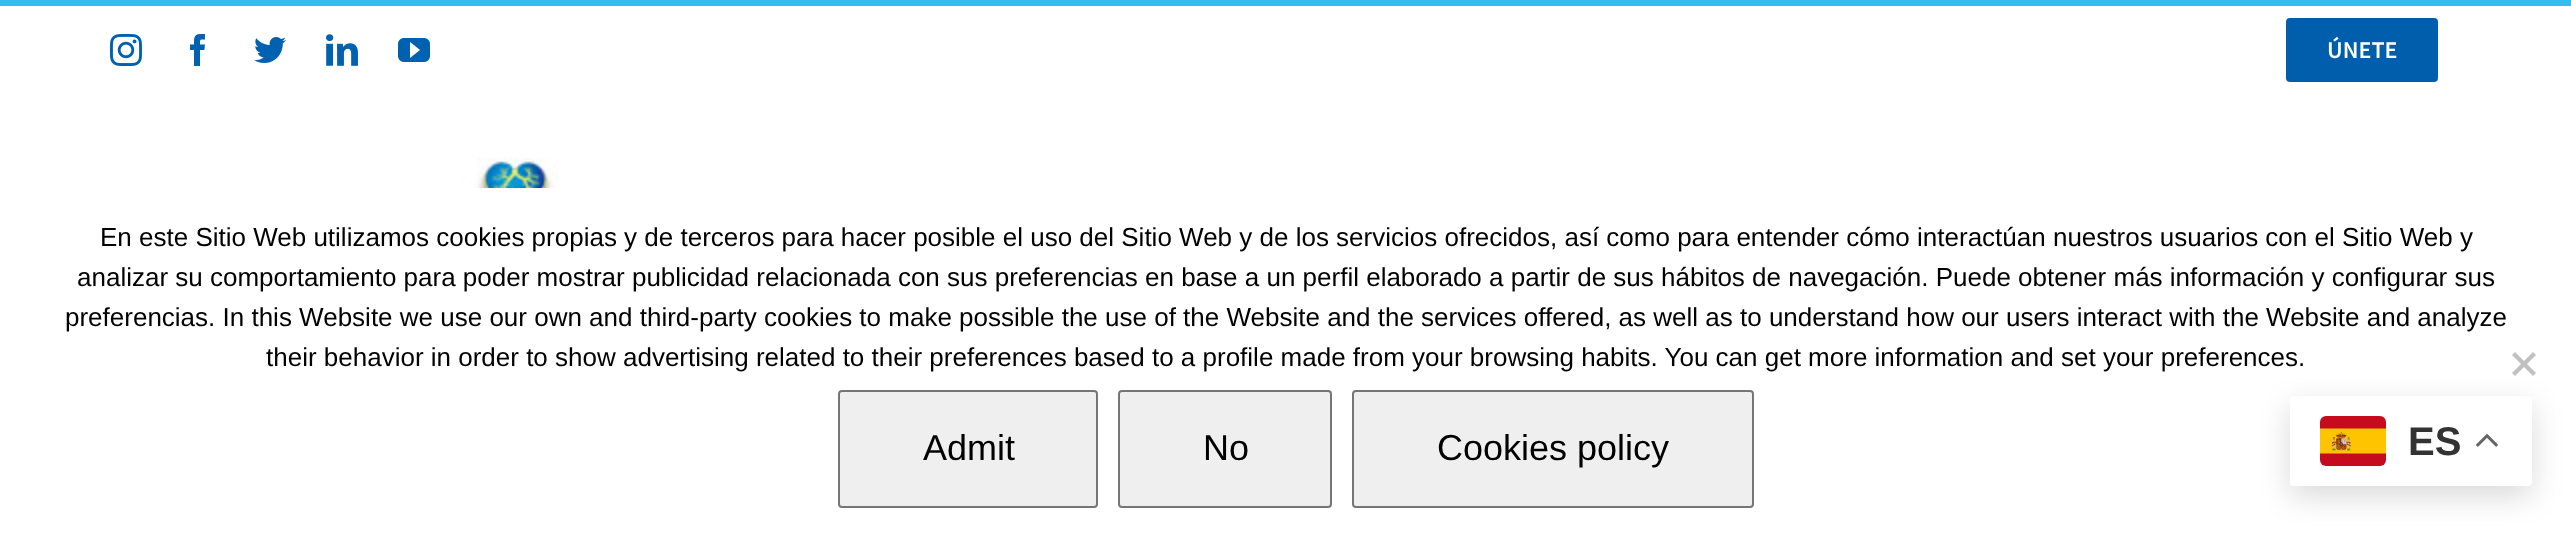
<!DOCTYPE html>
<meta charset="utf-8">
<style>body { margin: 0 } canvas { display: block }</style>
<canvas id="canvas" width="2571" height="537"></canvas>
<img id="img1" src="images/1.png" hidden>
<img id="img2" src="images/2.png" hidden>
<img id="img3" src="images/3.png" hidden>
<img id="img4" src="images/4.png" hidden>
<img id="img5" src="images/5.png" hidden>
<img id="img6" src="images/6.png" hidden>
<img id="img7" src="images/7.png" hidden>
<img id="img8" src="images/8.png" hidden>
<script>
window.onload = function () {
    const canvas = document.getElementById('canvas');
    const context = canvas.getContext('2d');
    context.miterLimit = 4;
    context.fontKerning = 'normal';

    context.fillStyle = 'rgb(255, 255, 255)';
    context.fillRect(0, 0, 2571, 537);
    context.fillStyle = 'rgb(53, 186, 242)';
    context.fillRect(0, 0, 2571, 6);
    context.drawImage(document.getElementById('img1'), 110, 34, 32, 32);
    context.drawImage(document.getElementById('img2'), 190, 34, 15, 32);
    context.drawImage(document.getElementById('img3'), 254, 37, 32, 26);
    context.drawImage(document.getElementById('img4'), 326, 34, 32, 32);
    context.drawImage(document.getElementById('img5'), 398, 38, 32, 24);
    context.fillStyle = 'rgb(0, 94, 173)';
    context.beginPath();
    context.roundRect(2286, 18, 152, 64, 4);
    context.fill();
    context.drawImage(document.getElementById('img6'), 110, 158, 561, 30);
    context.fillStyle = 'rgb(192, 192, 192)';
    context.beginPath();
    context.moveTo(2533, 352);
    context.lineTo(2536, 355);
    context.lineTo(2515, 376);
    context.lineTo(2512, 373);
    context.closePath();
    context.fill();
    context.beginPath();
    context.moveTo(2512, 355);
    context.lineTo(2515, 352);
    context.lineTo(2536, 373);
    context.lineTo(2533, 376);
    context.closePath();
    context.fill();
    context.fillStyle = 'rgb(239, 239, 239)';
    context.beginPath();
    context.roundRect(839, 391, 258, 116, 3);
    context.fill();
    context.strokeStyle = 'rgb(118, 118, 118)';
    context.lineWidth = 2;
    context.stroke();
    context.beginPath();
    context.roundRect(1119, 391, 212, 116, 3);
    context.fill();
    context.stroke();
    context.beginPath();
    context.roundRect(1353, 391, 400, 116, 3);
    context.fill();
    context.stroke();
    context.fillStyle = 'rgba(0, 0, 0, 0.15)';
    context.filter = 'blur(15px)';
    context.beginPath();
    context.roundRect(2290, 406, 242, 90, 4);
    context.fill();
    context.filter = 'none';
    context.fillStyle = 'rgb(255, 255, 255)';
    context.beginPath();
    context.roundRect(2290, 396, 242, 90, 4);
    context.fill();
    context.drawImage(document.getElementById('img7'), 2320, 416, 66, 50);
    context.drawImage(document.getElementById('img8'), 2476, 434, 22, 13);
    context.font = '600 24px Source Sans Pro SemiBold';
    context.fillText('ÚNETE', 2327, 58);
    context.font = '26px Liberation Sans';
    context.fillStyle = 'rgb(0, 0, 0)';
    context.fillText('En este Sitio Web utilizamos cookies propias y de terceros para hacer posible el uso del Sitio Web y de los servicios ofrecidos, así como para entender cómo interactúan nuestros usuarios con el Sitio Web y', 100, 246);
    context.fillText('analizar su comportamiento para poder mostrar publicidad relacionada con sus preferencias en base a un perfil elaborado a partir de sus hábitos de navegación. Puede obtener más información y configurar sus', 77, 286);
    context.fillText('preferencias. In this Website we use our own and third-party cookies to make possible the use of the Website and the services offered, as well as to understand how our users interact with the Website and analyze', 65, 326);
    context.fillText('their behavior in order to show advertising related to their preferences based to a profile made from your browsing habits. You can get more information and set your preferences.', 266, 366);
    context.font = '36px Liberation Sans';
    context.fillText('Admit', 923, 460);
    context.fillText('No', 1203, 460);
    context.fillText('Cookies policy', 1437, 460);
    context.font = 'bold 40px Liberation Sans';
    context.fillStyle = 'rgb(51, 51, 51)';
    context.fillText('ES', 2408, 455);
};
</script>
